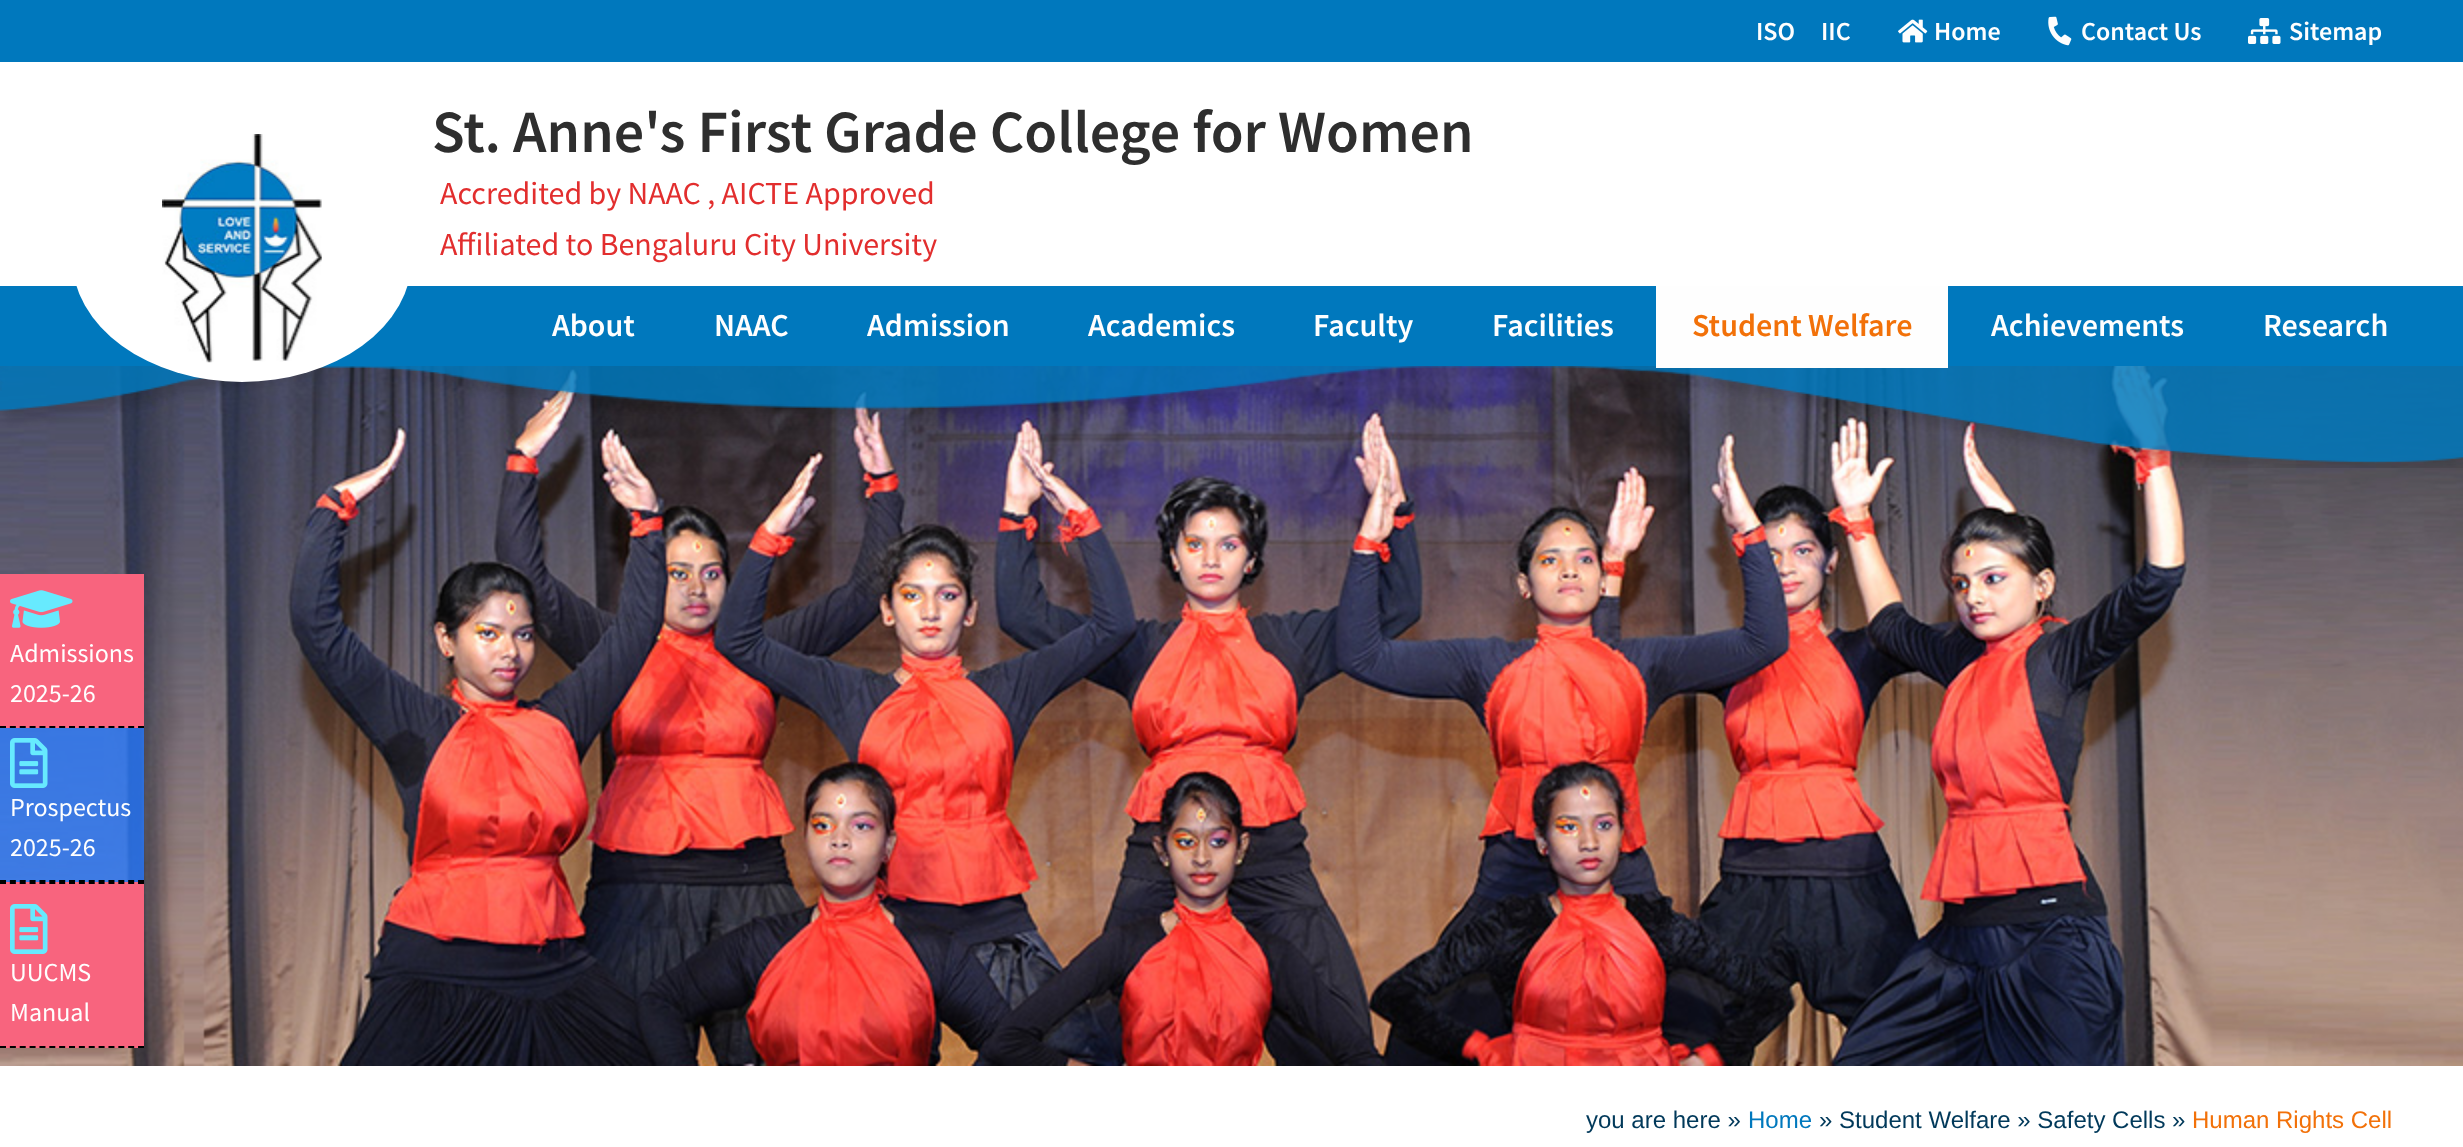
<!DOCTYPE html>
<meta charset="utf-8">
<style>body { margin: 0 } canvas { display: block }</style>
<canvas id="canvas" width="2463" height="1147"></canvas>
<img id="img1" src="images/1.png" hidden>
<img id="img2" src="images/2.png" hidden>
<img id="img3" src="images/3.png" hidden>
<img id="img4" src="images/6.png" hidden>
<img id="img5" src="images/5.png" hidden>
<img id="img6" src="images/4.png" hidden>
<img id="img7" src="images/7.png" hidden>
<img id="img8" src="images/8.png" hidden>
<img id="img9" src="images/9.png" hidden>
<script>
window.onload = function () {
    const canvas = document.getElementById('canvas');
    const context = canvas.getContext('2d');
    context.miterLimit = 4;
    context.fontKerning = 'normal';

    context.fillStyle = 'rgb(255, 255, 255)';
    context.fillRect(0, 0, 2463, 1147);
    context.fillStyle = 'rgb(0, 120, 189)';
    context.fillRect(0, 0, 2463, 62);
    context.drawImage(document.getElementById('img1'), 1898, 19, 30, 24);
    context.drawImage(document.getElementById('img2'), 2048, 16, 24, 30);
    context.drawImage(document.getElementById('img3'), 2248, 18, 33, 26);
    context.fillRect(0, 286, 2463, 80);
    context.drawImage(document.getElementById('img4'), 0, 366, 2463, 700);
    context.drawImage(document.getElementById('img5'), 0, 366, 2463, 102);
    context.fillStyle = 'rgb(255, 255, 255)';
    context.beginPath();
    context.ellipse(242, 258, 170, 124, 0, 0, 2 * Math.PI);
    context.fill();
    context.drawImage(document.getElementById('img6'), 162, 134, 160, 229);
    context.fillStyle = 'rgb(254, 254, 254)';
    context.fillRect(1656, 286, 292, 82);
    context.fillStyle = 'rgba(40, 121, 253, 0.8)';
    context.fillRect(0, 728, 144, 154);
    context.fillStyle = 'rgb(248, 100, 126)';
    context.fillRect(0, 574, 144, 154);
    context.beginPath();
    context.moveTo(0, 727);
    context.lineTo(144, 727);
    context.strokeStyle = 'rgb(0, 0, 0)';
    context.lineWidth = 2;
    context.setLineDash([6, 3.86]);
    context.stroke();
    context.drawImage(document.getElementById('img7'), 10, 590, 63, 38);
    context.beginPath();
    context.moveTo(0, 881);
    context.lineTo(144, 881);
    context.stroke();
    context.drawImage(document.getElementById('img8'), 10, 738, 38, 50);
    context.fillRect(0, 882, 144, 166);
    context.beginPath();
    context.moveTo(0, 883);
    context.lineTo(144, 883);
    context.stroke();
    context.beginPath();
    context.moveTo(0, 1047);
    context.lineTo(144, 1047);
    context.stroke();
    context.drawImage(document.getElementById('img9'), 10, 904, 38, 50);
    context.font = '600 26px Source Sans Pro';
    context.fillStyle = 'rgb(254, 254, 254)';
    context.fillText('ISO', 1756, 40);
    context.fillText('IIC', 1821, 40);
    context.fillText('Home', 1934, 40);
    context.fillText('Contact Us', 2081, 40);
    context.fillText('Sitemap', 2289, 40);
    context.font = '600 60px Source Sans Pro';
    context.fillStyle = 'rgb(46, 46, 46)';
    context.fillText('St. Anne\'s First Grade College for Women', 432, 152);
    context.font = '32px Source Sans Pro';
    context.fillStyle = 'rgb(226, 46, 46)';
    context.fillText('Accredited by NAAC , AICTE Approved', 440, 204);
    context.fillText('Affiliated to Bengaluru City University', 440, 255);
    context.font = '600 32px Source Sans Pro';
    context.fillStyle = 'rgb(254, 254, 254)';
    context.fillText('About', 552, 336);
    context.fillText('NAAC', 714, 336);
    context.fillText('Admission', 867, 336);
    context.fillText('Academics', 1088, 336);
    context.fillText('Faculty', 1313, 336);
    context.fillText('Facilities', 1492, 336);
    context.fillStyle = 'rgb(242, 113, 9)';
    context.fillText('Student Welfare', 1692, 336);
    context.fillStyle = 'rgb(254, 254, 254)';
    context.fillText('Achievements', 1991, 336);
    context.fillText('Research', 2263, 336);
    context.font = '26px Source Sans Pro';
    context.fillText('Admissions', 10, 662);
    context.fillText('2025-26', 10, 702);
    context.fillText('Prospectus', 10, 816);
    context.fillText('2025-26', 10, 856);
    context.fillText('UUCMS', 10, 981);
    context.fillText('Manual', 10, 1021);
    context.font = '24px Liberation Sans';
    context.fillStyle = 'rgb(1, 57, 90)';
    context.fillText('you are here »', 1586, 1128);
    context.fillStyle = 'rgb(0, 120, 189)';
    context.fillText('Home', 1748, 1128);
    context.fillStyle = 'rgb(1, 57, 90)';
    context.fillText('» Student Welfare » Safety Cells »', 1819, 1128);
    context.fillStyle = 'rgb(242, 113, 9)';
    context.fillText('Human Rights Cell', 2192, 1128);
};
</script>
